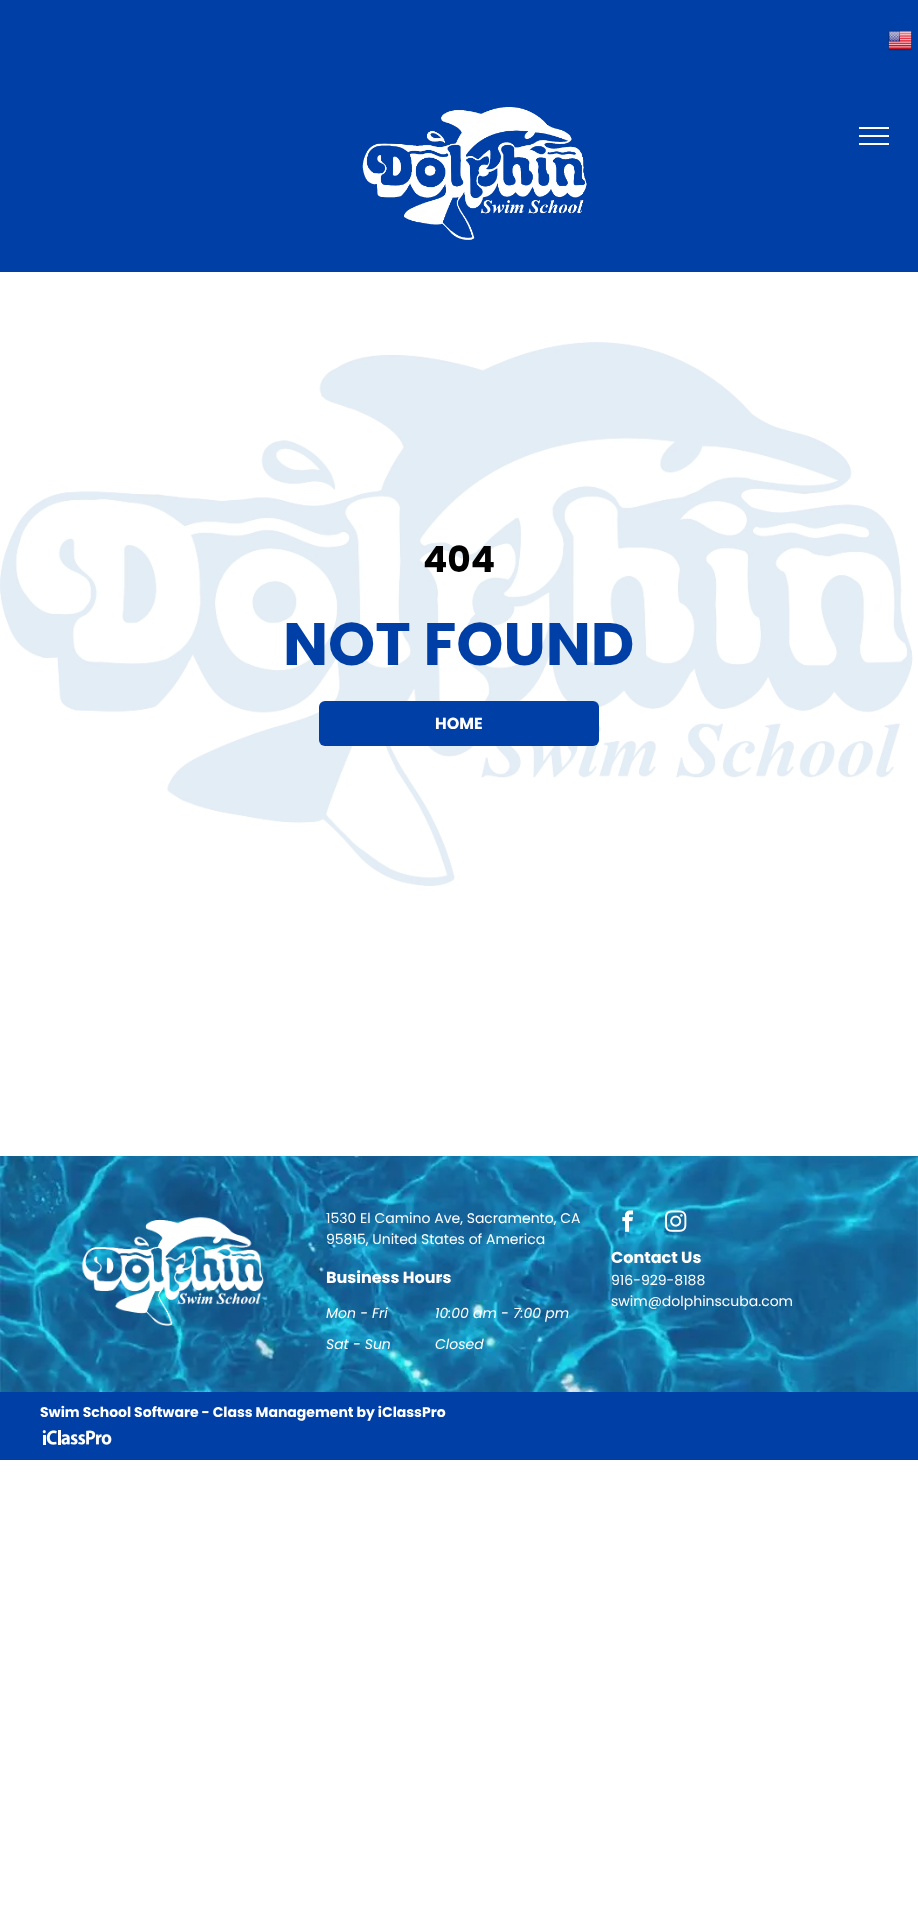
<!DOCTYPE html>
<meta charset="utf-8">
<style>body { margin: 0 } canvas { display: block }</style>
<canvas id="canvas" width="918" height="1929"></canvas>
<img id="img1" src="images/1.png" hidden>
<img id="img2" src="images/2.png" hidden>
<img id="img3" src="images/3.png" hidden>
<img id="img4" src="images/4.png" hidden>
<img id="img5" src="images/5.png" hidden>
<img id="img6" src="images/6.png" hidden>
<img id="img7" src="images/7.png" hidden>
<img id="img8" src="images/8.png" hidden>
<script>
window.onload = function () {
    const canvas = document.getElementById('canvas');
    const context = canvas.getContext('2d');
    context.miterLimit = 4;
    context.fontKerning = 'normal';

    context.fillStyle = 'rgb(255, 255, 255)';
    context.fillRect(0, 0, 918, 1929);
    context.fillStyle = 'rgb(0, 63, 165)';
    context.fillRect(0, 0, 918, 272);
    context.drawImage(document.getElementById('img1'), 888, 30, 24, 21);
    context.drawImage(document.getElementById('img2'), 362, 107, 225, 133);
    context.fillStyle = 'rgb(255, 255, 255)';
    context.fillRect(859, 127, 30, 2);
    context.fillRect(859, 135, 30, 2);
    context.fillRect(859, 143, 30, 2);
    context.drawImage(document.getElementById('img3'), 0, 342, 913, 544);
    context.fillStyle = 'rgb(0, 63, 165)';
    context.beginPath();
    context.roundRect(319, 701, 280, 45, 6);
    context.fill();
    context.drawImage(document.getElementById('img4'), 0, 1156, 918, 236);
    context.drawImage(document.getElementById('img5'), 81, 1217, 183, 109);
    context.drawImage(document.getElementById('img6'), 622, 1210, 11, 22);
    context.drawImage(document.getElementById('img7'), 665, 1210, 22, 22);
    context.fillRect(0, 1392, 918, 68);
    context.drawImage(document.getElementById('img8'), 42, 1430, 70, 15);
    context.font = 'bold 36px Poppins';
    context.fillStyle = 'rgb(0, 0, 0)';
    context.fillText('404', 423, 572);
    context.font = 'bold 60px Poppins';
    context.fillStyle = 'rgb(0, 63, 165)';
    context.fillText('NOT FOUND', 283, 665);
    context.font = 'bold 16px Poppins';
    context.fillStyle = 'rgb(255, 255, 255)';
    context.fillText('HOME', 435, 729);
    context.font = '14px Poppins';
    context.fillText('1530 El Camino Ave, Sacramento, CA', 326, 1223);
    context.fillText('95815, United States of America', 326, 1244);
    context.font = 'bold 16px Poppins';
    context.fillText('Business Hours', 326, 1283);
    context.font = 'italic 14px Poppins';
    context.fillText('Mon - Fri', 326, 1318);
    context.fillText('10:00 am - 7:00 pm', 435, 1318);
    context.fillText('Sat - Sun', 326, 1349);
    context.fillText('Closed', 435, 1349);
    context.font = 'bold 16px Poppins';
    context.fillText('Contact Us', 611, 1263);
    context.font = '14px Poppins';
    context.fillText('916-929-8188', 611, 1285);
    context.fillText('swim@dolphinscuba.com', 611, 1306);
    context.font = 'bold 14px Poppins';
    context.fillText('Swim School Software - Class Management by iClassPro', 40, 1417);
};
</script>
